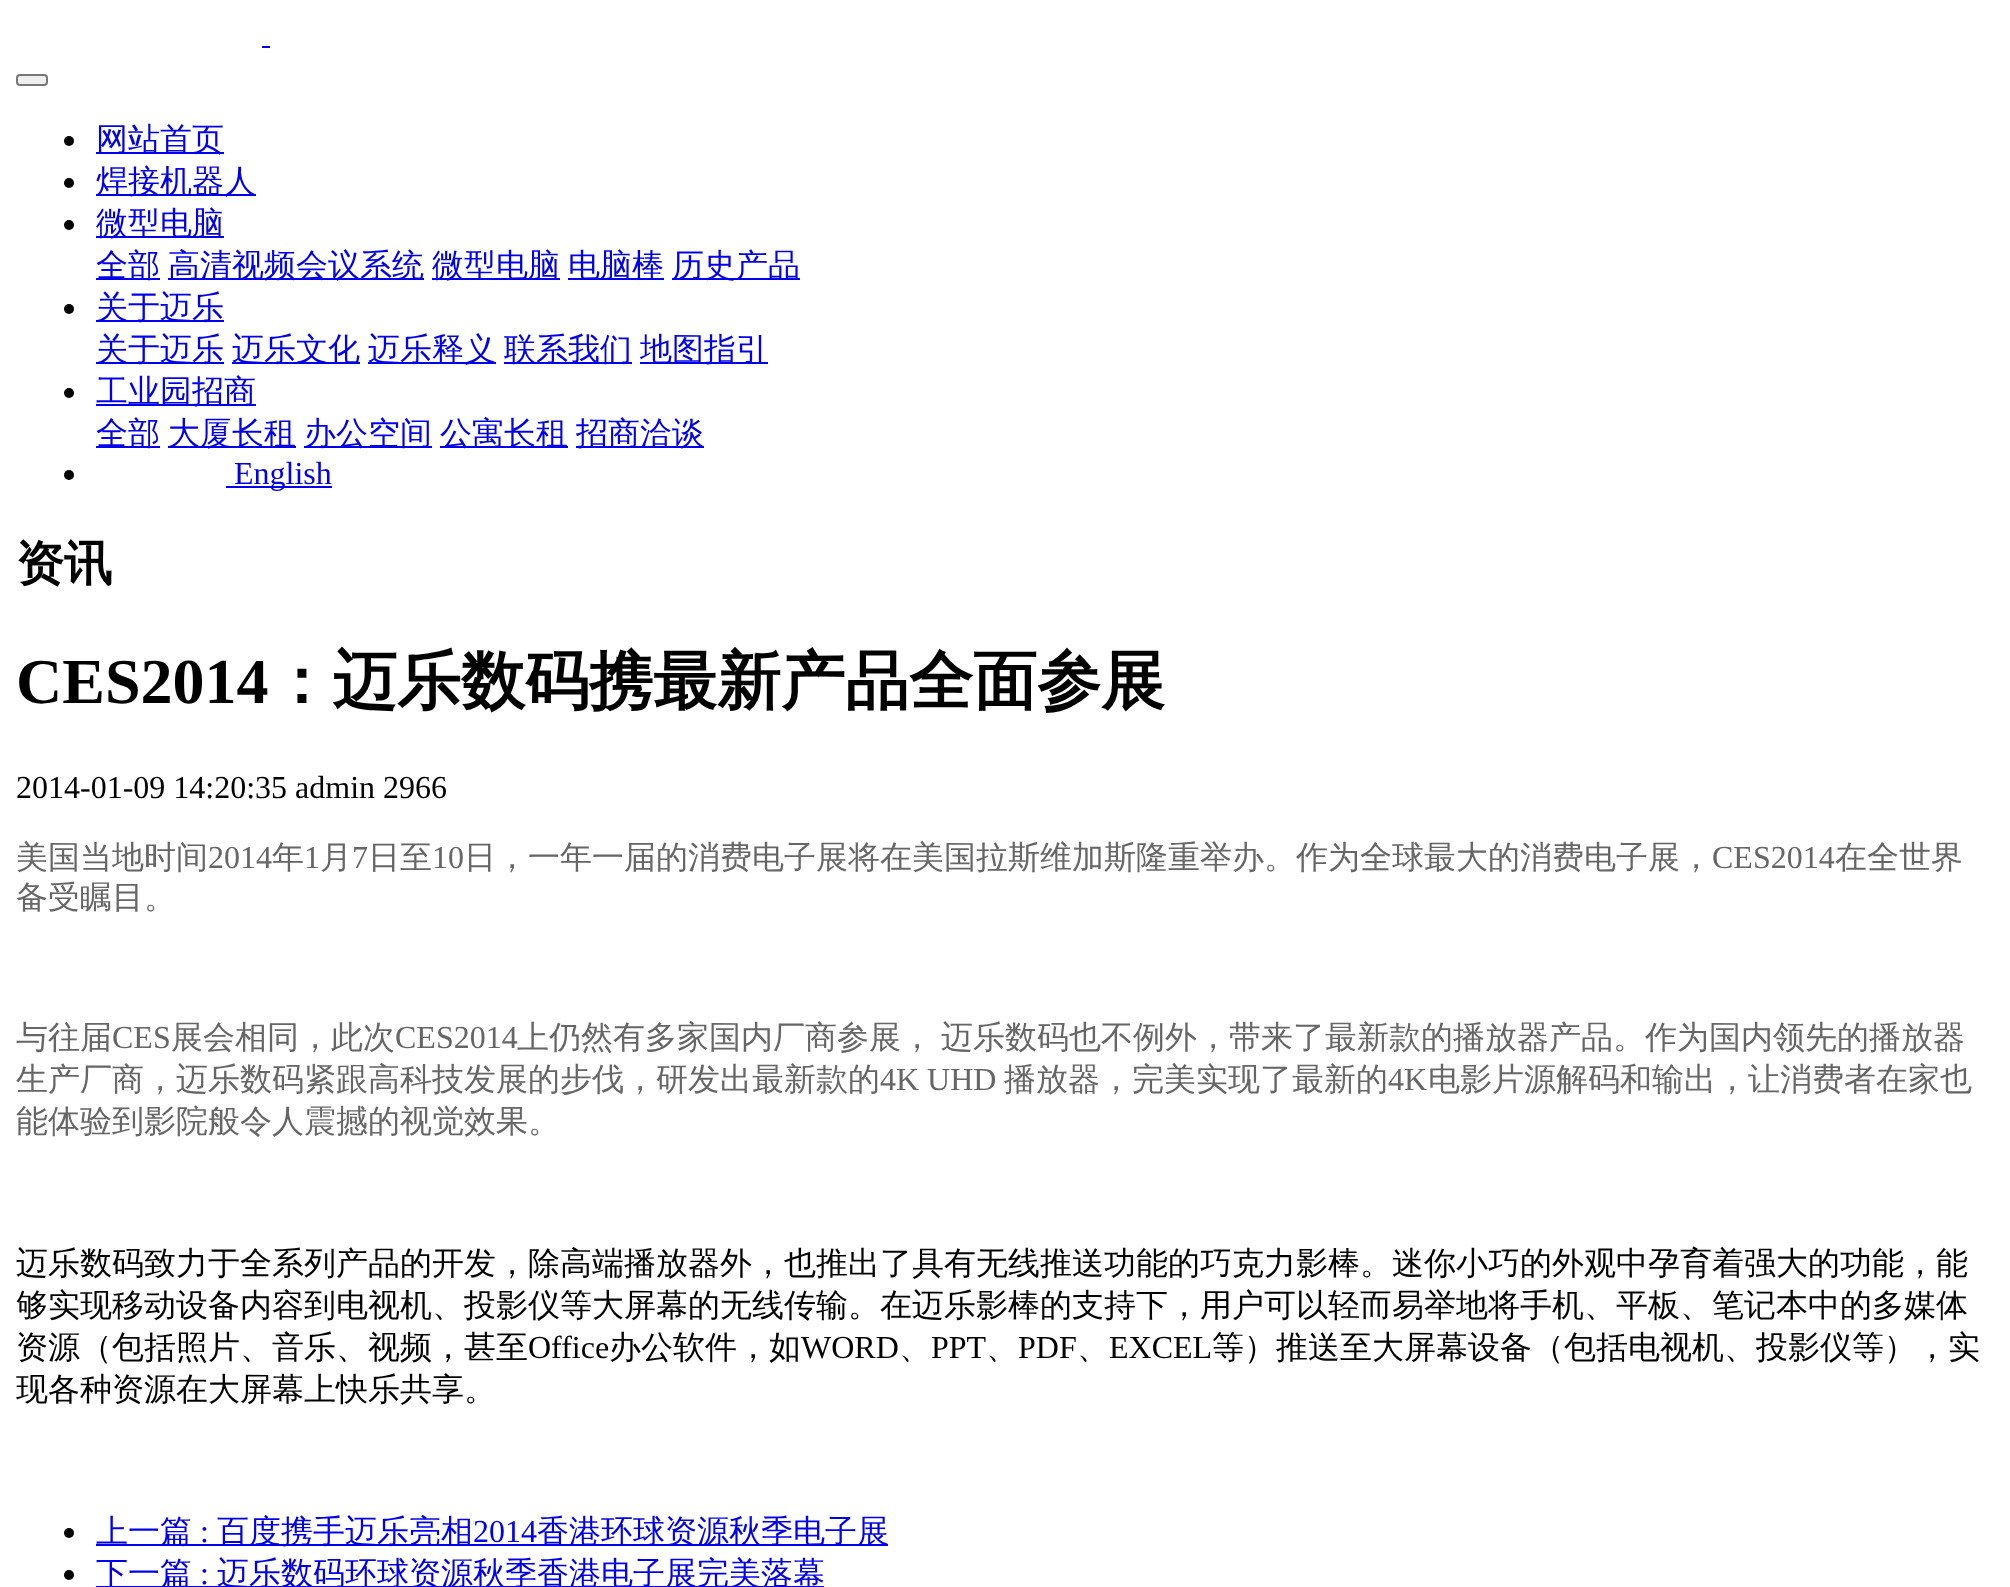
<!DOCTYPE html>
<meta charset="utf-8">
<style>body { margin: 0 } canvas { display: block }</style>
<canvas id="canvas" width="2010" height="1587"></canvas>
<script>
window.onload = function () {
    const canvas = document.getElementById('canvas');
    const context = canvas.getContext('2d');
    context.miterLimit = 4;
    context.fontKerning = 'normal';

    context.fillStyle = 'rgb(255, 255, 255)';
    context.fillRect(0, 0, 2010, 1587);
    context.fillStyle = 'rgb(0, 0, 238)';
    context.fillRect(262, 46, 8, 2);
    context.fillStyle = 'rgb(239, 239, 239)';
    context.beginPath();
    context.roundRect(17, 75, 30, 10, 3);
    context.fill();
    context.strokeStyle = 'rgb(118, 118, 118)';
    context.lineWidth = 2;
    context.stroke();
    context.fillStyle = 'rgb(0, 0, 0)';
    context.beginPath();
    context.arc(69, 141, 5, 0, 2 * Math.PI);
    context.fill();
    context.fillStyle = 'rgb(0, 0, 238)';
    context.fillRect(96, 152, 128, 2);
    context.fillStyle = 'rgb(0, 0, 0)';
    context.beginPath();
    context.arc(69, 183, 5, 0, 2 * Math.PI);
    context.fill();
    context.fillStyle = 'rgb(0, 0, 238)';
    context.fillRect(96, 194, 160, 2);
    context.fillStyle = 'rgb(0, 0, 0)';
    context.beginPath();
    context.arc(69, 225, 5, 0, 2 * Math.PI);
    context.fill();
    context.fillStyle = 'rgb(0, 0, 238)';
    context.fillRect(96, 236, 128, 2);
    context.fillRect(96, 278, 64, 2);
    context.fillRect(168, 278, 256, 2);
    context.fillRect(432, 278, 128, 2);
    context.fillRect(568, 278, 96, 2);
    context.fillRect(672, 278, 128, 2);
    context.fillStyle = 'rgb(0, 0, 0)';
    context.beginPath();
    context.arc(69, 309, 5, 0, 2 * Math.PI);
    context.fill();
    context.fillStyle = 'rgb(0, 0, 238)';
    context.fillRect(96, 320, 128, 2);
    context.fillRect(96, 362, 128, 2);
    context.fillRect(232, 362, 128, 2);
    context.fillRect(368, 362, 128, 2);
    context.fillRect(504, 362, 128, 2);
    context.fillRect(640, 362, 128, 2);
    context.fillStyle = 'rgb(0, 0, 0)';
    context.beginPath();
    context.arc(69, 393, 5, 0, 2 * Math.PI);
    context.fill();
    context.fillStyle = 'rgb(0, 0, 238)';
    context.fillRect(96, 404, 160, 2);
    context.fillRect(96, 446, 64, 2);
    context.fillRect(168, 446, 128, 2);
    context.fillRect(304, 446, 128, 2);
    context.fillRect(440, 446, 128, 2);
    context.fillRect(576, 446, 128, 2);
    context.fillStyle = 'rgb(0, 0, 0)';
    context.beginPath();
    context.arc(69, 475, 5, 0, 2 * Math.PI);
    context.fill();
    context.fillStyle = 'rgb(0, 0, 238)';
    context.fillRect(226, 486, 106, 2);
    context.fillStyle = 'rgb(0, 0, 0)';
    context.beginPath();
    context.arc(69, 1533, 5, 0, 2 * Math.PI);
    context.fill();
    context.fillStyle = 'rgb(0, 0, 238)';
    context.fillRect(96, 1544, 792, 2);
    context.fillStyle = 'rgb(0, 0, 0)';
    context.beginPath();
    context.arc(69, 1575, 5, 0, 2 * Math.PI);
    context.fill();
    context.fillStyle = 'rgb(0, 0, 238)';
    context.fillRect(96, 1586, 728, 1);
    context.font = '500 32px WenQuanYi Zen Hei';
    context.fillText('网站首页', 96, 150);
    context.fillText('焊接机器人', 96, 192);
    context.fillText('微型电脑', 96, 234);
    context.fillText('全部', 96, 276);
    context.fillText('高清视频会议系统', 168, 276);
    context.fillText('微型电脑', 432, 276);
    context.fillText('电脑棒', 568, 276);
    context.fillText('历史产品', 672, 276);
    context.fillText('关于迈乐', 96, 318);
    context.fillText('关于迈乐', 96, 360);
    context.fillText('迈乐文化', 232, 360);
    context.fillText('迈乐释义', 368, 360);
    context.fillText('联系我们', 504, 360);
    context.fillText('地图指引', 640, 360);
    context.fillText('工业园招商', 96, 402);
    context.fillText('全部', 96, 444);
    context.fillText('大厦长租', 168, 444);
    context.fillText('办公空间', 304, 444);
    context.fillText('公寓长租', 440, 444);
    context.fillText('招商洽谈', 576, 444);
    context.font = '32px Liberation Serif';
    context.fillText('English', 234, 484);
    context.font = 'bold 48px WenQuanYi Zen Hei';
    context.fillStyle = 'rgb(0, 0, 0)';
    context.fillText('资讯', 16, 580);
    context.font = 'bold 64px Liberation Serif';
    context.fillText('CES2014', 16, 703);
    context.font = 'bold 64px WenQuanYi Zen Hei';
    context.fillText('：迈乐数码携最新产品全面参展', 269, 703);
    context.font = '32px Liberation Serif';
    context.fillText('2014-01-09 14:20:35 admin 2966', 16, 798);
    context.font = '500 32px WenQuanYi Zen Hei';
    context.fillStyle = 'rgb(102, 102, 102)';
    context.fillText('美国当地时间', 16, 868);
    context.font = '32px Liberation Serif';
    context.fillText('2014', 208, 868);
    context.font = '500 32px WenQuanYi Zen Hei';
    context.fillText('年', 272, 868);
    context.font = '32px Liberation Serif';
    context.fillText('1', 304, 868);
    context.font = '500 32px WenQuanYi Zen Hei';
    context.fillText('月', 320, 868);
    context.font = '32px Liberation Serif';
    context.fillText('7', 352, 868);
    context.font = '500 32px WenQuanYi Zen Hei';
    context.fillText('日至', 368, 868);
    context.font = '32px Liberation Serif';
    context.fillText('10', 432, 868);
    context.font = '500 32px WenQuanYi Zen Hei';
    context.fillText('日，一年一届的消费电子展将在美国拉斯维加斯隆重举办。作为全球最大的消费电子展，', 464, 868);
    context.font = '32px Liberation Serif';
    context.fillText('CES2014', 1712, 868);
    context.font = '500 32px WenQuanYi Zen Hei';
    context.fillText('在全世界', 1835, 868);
    context.fillText('备受瞩目。', 16, 908);
    context.fillText('与往届', 16, 1048);
    context.font = '32px Liberation Serif';
    context.fillText('CES', 112, 1048);
    context.font = '500 32px WenQuanYi Zen Hei';
    context.fillText('展会相同，此次', 171, 1048);
    context.font = '32px Liberation Serif';
    context.fillText('CES2014', 395, 1048);
    context.font = '500 32px WenQuanYi Zen Hei';
    context.fillText('上仍然有多家国内厂商参展，', 517, 1048);
    context.fillText('迈乐数码也不例外，带来了最新款的播放器产品。作为国内领先的播放器', 941, 1048);
    context.fillText('生产厂商，迈乐数码紧跟高科技发展的步伐，研发出最新款的', 16, 1090);
    context.font = '32px Liberation Serif';
    context.fillText('4K UHD', 880, 1090);
    context.font = '500 32px WenQuanYi Zen Hei';
    context.fillText('播放器，完美实现了最新的', 1004, 1090);
    context.font = '32px Liberation Serif';
    context.fillText('4K', 1388, 1090);
    context.font = '500 32px WenQuanYi Zen Hei';
    context.fillText('电影片源解码和输出，让消费者在家也', 1428, 1090);
    context.fillText('能体验到影院般令人震撼的视觉效果。', 16, 1132);
    context.fillStyle = 'rgb(0, 0, 0)';
    context.fillText('迈乐数码致力于全系列产品的开发，除高端播放器外，也推出了具有无线推送功能的巧克力影棒。迷你小巧的外观中孕育着强大的功能，能', 16, 1274);
    context.fillText('够实现移动设备内容到电视机、投影仪等大屏幕的无线传输。在迈乐影棒的支持下，用户可以轻而易举地将手机、平板、笔记本中的多媒体', 16, 1316);
    context.fillText('资源（包括照片、音乐、视频，甚至', 16, 1358);
    context.font = '32px Liberation Serif';
    context.fillText('Office', 528, 1358);
    context.font = '500 32px WenQuanYi Zen Hei';
    context.fillText('办公软件，如', 609, 1358);
    context.font = '32px Liberation Serif';
    context.fillText('WORD', 801, 1358);
    context.font = '500 32px WenQuanYi Zen Hei';
    context.fillText('、', 899, 1358);
    context.font = '32px Liberation Serif';
    context.fillText('PPT', 931, 1358);
    context.font = '500 32px WenQuanYi Zen Hei';
    context.fillText('、', 986, 1358);
    context.font = '32px Liberation Serif';
    context.fillText('PDF', 1018, 1358);
    context.font = '500 32px WenQuanYi Zen Hei';
    context.fillText('、', 1077, 1358);
    context.font = '32px Liberation Serif';
    context.fillText('EXCEL', 1109, 1358);
    context.font = '500 32px WenQuanYi Zen Hei';
    context.fillText('等）推送至大屏幕设备（包括电视机、投影仪等），实', 1212, 1358);
    context.fillText('现各种资源在大屏幕上快乐共享。', 16, 1400);
    context.fillStyle = 'rgb(0, 0, 238)';
    context.fillText('上一篇', 96, 1542);
    context.font = '32px Liberation Serif';
    context.fillText(':', 200, 1542);
    context.font = '500 32px WenQuanYi Zen Hei';
    context.fillText('百度携手迈乐亮相', 217, 1542);
    context.font = '32px Liberation Serif';
    context.fillText('2014', 473, 1542);
    context.font = '500 32px WenQuanYi Zen Hei';
    context.fillText('香港环球资源秋季电子展', 537, 1542);
    context.fillText('下一篇', 96, 1584);
    context.font = '32px Liberation Serif';
    context.fillText(':', 200, 1584);
    context.font = '500 32px WenQuanYi Zen Hei';
    context.fillText('迈乐数码环球资源秋季香港电子展完美落幕', 217, 1584);
};
</script>
